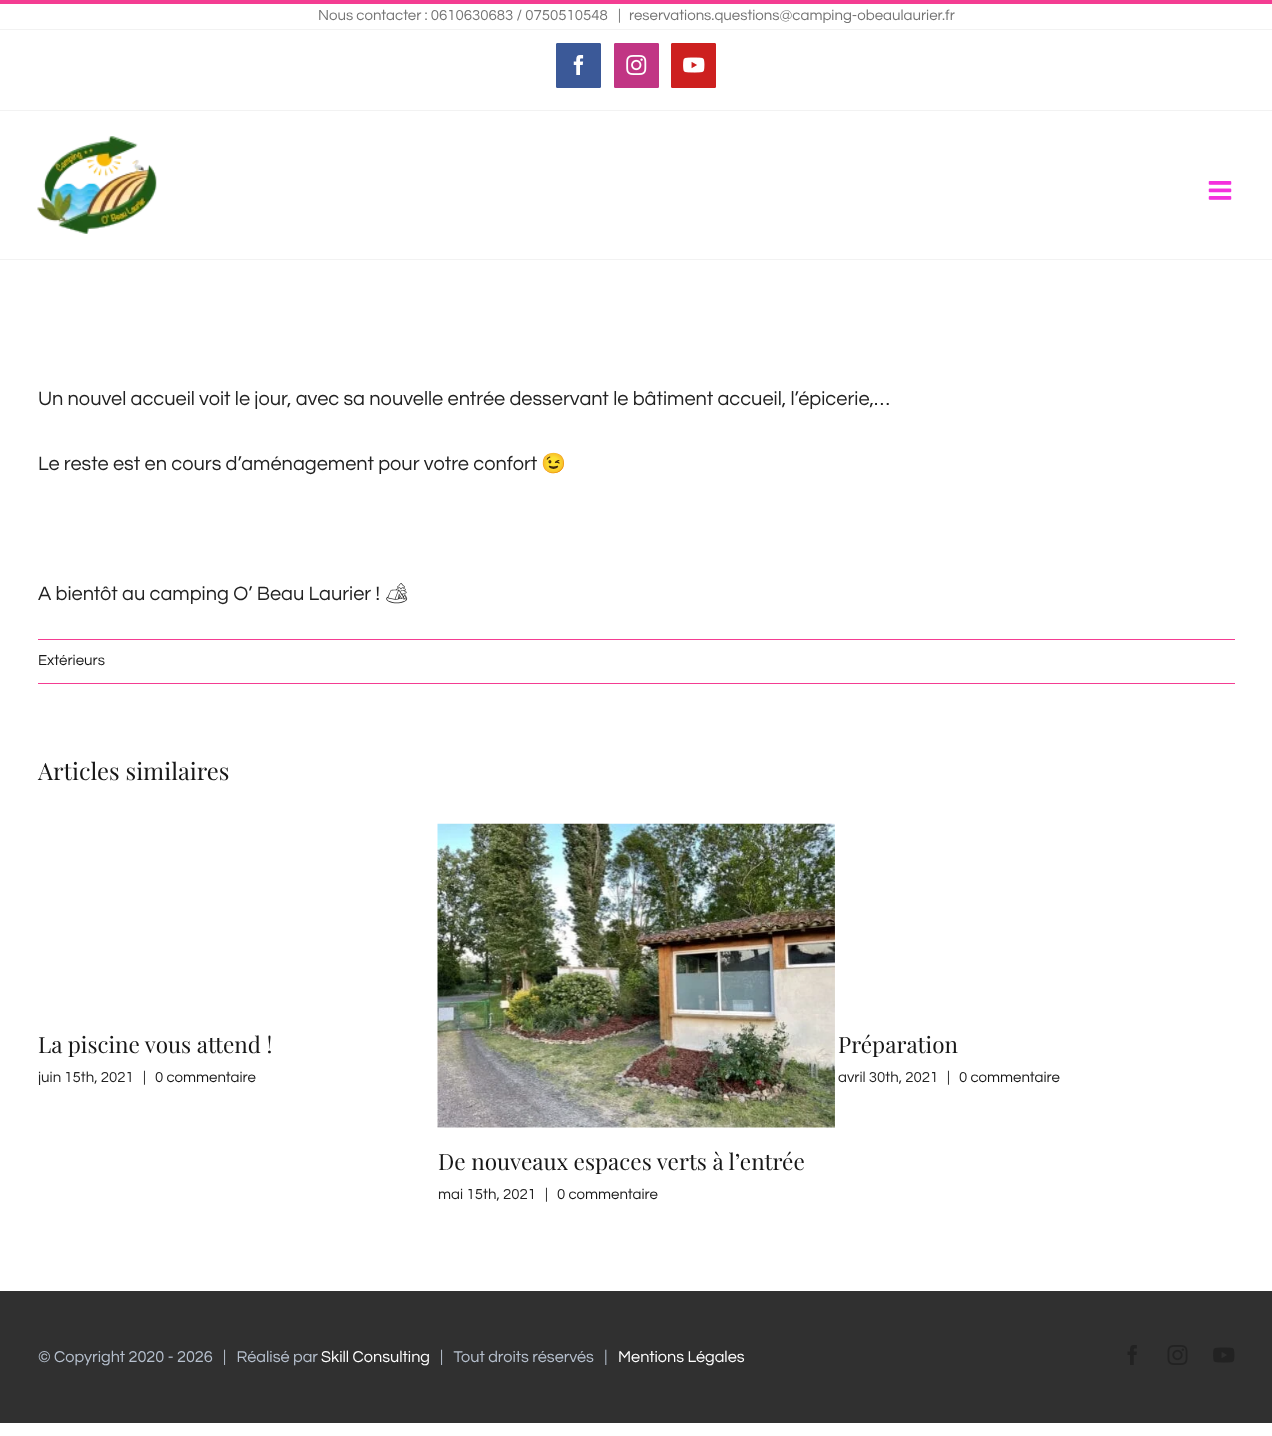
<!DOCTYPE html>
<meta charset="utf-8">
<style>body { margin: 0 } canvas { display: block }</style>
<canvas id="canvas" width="1272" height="1436"></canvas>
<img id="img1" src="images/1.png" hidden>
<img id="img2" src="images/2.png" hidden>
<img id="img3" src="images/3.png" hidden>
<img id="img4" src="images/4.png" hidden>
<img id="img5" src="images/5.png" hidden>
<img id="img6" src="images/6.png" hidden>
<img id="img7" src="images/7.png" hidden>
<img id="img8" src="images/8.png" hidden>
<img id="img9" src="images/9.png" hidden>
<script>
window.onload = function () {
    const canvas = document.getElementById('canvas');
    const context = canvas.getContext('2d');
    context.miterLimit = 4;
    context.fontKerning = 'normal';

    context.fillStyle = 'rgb(255, 255, 255)';
    context.fillRect(0, 0, 1272, 1436);
    context.fillStyle = 'rgb(244, 61, 146)';
    context.fillRect(0, 0, 1272, 4);
    context.fillStyle = 'rgb(242, 242, 242)';
    context.fillRect(0, 110, 1272, 1);
    context.fillRect(0, 29, 1272, 1);
    context.fillStyle = 'rgb(59, 89, 152)';
    context.beginPath();
    context.roundRect(556.5, 43.5, 44, 44, 0.5);
    context.fill();
    context.strokeStyle = 'rgb(59, 89, 152)';
    context.stroke();
    context.drawImage(document.getElementById('img1'), 573, 55, 11, 20);
    context.fillStyle = 'rgb(193, 53, 132)';
    context.beginPath();
    context.roundRect(614.5, 43.5, 44, 44, 0.5);
    context.fill();
    context.strokeStyle = 'rgb(193, 53, 132)';
    context.stroke();
    context.drawImage(document.getElementById('img2'), 626, 55, 21, 20);
    context.fillStyle = 'rgb(205, 32, 31)';
    context.beginPath();
    context.roundRect(671.5, 43.5, 44, 44, 0.5);
    context.fill();
    context.strokeStyle = 'rgb(205, 32, 31)';
    context.stroke();
    context.drawImage(document.getElementById('img3'), 683, 57, 22, 16);
    context.fillStyle = 'rgb(242, 242, 242)';
    context.fillRect(0, 259, 1272, 1);
    context.drawImage(document.getElementById('img4'), 37, 136, 120, 98);
    context.drawImage(document.getElementById('img5'), 1208, 181, 24, 19);
    context.fillStyle = 'rgb(244, 61, 146)';
    context.fillRect(38, 639, 1197, 1);
    context.fillRect(38, 683, 1197, 1);
    context.drawImage(document.getElementById('img6'), 437, 823, 398, 305);
    context.fillStyle = 'rgb(48, 48, 48)';
    context.fillRect(0, 1291, 1272, 132);
    context.drawImage(document.getElementById('img7'), 1127, 1345, 10, 20);
    context.drawImage(document.getElementById('img8'), 1167, 1345, 21, 20);
    context.drawImage(document.getElementById('img9'), 1213, 1347, 22, 16);
    context.font = '15px Questrial';
    context.fillStyle = 'rgb(116, 116, 116)';
    context.fillText('Nous contacter : 0610630683 / 0750510548', 318, 20);
    context.fillText('|', 618, 20);
    context.fillText('reservations.questions@camping-obeaulaurier.fr', 629, 20);
    context.font = '20px Questrial';
    context.fillStyle = 'rgb(34, 34, 34)';
    context.fillText('Un nouvel accueil voit le jour, avec sa nouvelle entrée desservant le bâtiment accueil, l’épicerie,…', 38, 405);
    context.fillText('Le reste est en cours d’aménagement pour votre confort', 38, 470);
    context.font = '20px Noto Color Emoji';
    context.fillText('😉', 541, 470);
    context.font = '20px Questrial';
    context.fillText('A bientôt au camping O’ Beau Laurier !', 38, 600);
    context.font = '20px Noto Emoji';
    context.fillText('🏕', 384, 600);
    context.font = '15px Questrial';
    context.fillStyle = 'rgb(23, 23, 23)';
    context.fillText('Extérieurs', 38, 665);
    context.font = '23.75px Playfair Display';
    context.fillText('Articles similaires', 38, 780);
    context.font = '22.5px Playfair Display';
    context.fillText('La piscine vous attend !', 38, 1053);
    context.font = '15px Questrial';
    context.fillStyle = 'rgb(34, 34, 34)';
    context.fillText('juin 15th, 2021', 38, 1082);
    context.fillText('|', 143, 1082);
    context.fillStyle = 'rgb(23, 23, 23)';
    context.fillText('0 commentaire', 155, 1082);
    context.font = '22.5px Playfair Display';
    context.fillText('Préparation', 838, 1053);
    context.font = '15px Questrial';
    context.fillStyle = 'rgb(34, 34, 34)';
    context.fillText('avril 30th, 2021', 838, 1082);
    context.fillText('|', 947, 1082);
    context.fillStyle = 'rgb(23, 23, 23)';
    context.fillText('0 commentaire', 959, 1082);
    context.font = '22.5px Playfair Display';
    context.fillText('De nouveaux espaces verts à l’entrée', 438, 1170);
    context.font = '15px Questrial';
    context.fillStyle = 'rgb(34, 34, 34)';
    context.fillText('mai 15th, 2021', 438, 1199);
    context.fillText('|', 545, 1199);
    context.fillStyle = 'rgb(23, 23, 23)';
    context.fillText('0 commentaire', 557, 1199);
    context.font = '16.25px Questrial';
    context.fillStyle = 'rgb(182, 192, 206)';
    context.fillText('© Copyright 2020 - 2026   |   Réalisé par', 38, 1362);
    context.fillStyle = 'rgb(255, 255, 255)';
    context.fillText('Skill Consulting', 321, 1362);
    context.fillStyle = 'rgb(182, 192, 206)';
    context.fillText('|   Tout droits réservés   |', 440, 1362);
    context.fillStyle = 'rgb(255, 255, 255)';
    context.fillText('Mentions Légales', 618, 1362);
};
</script>
